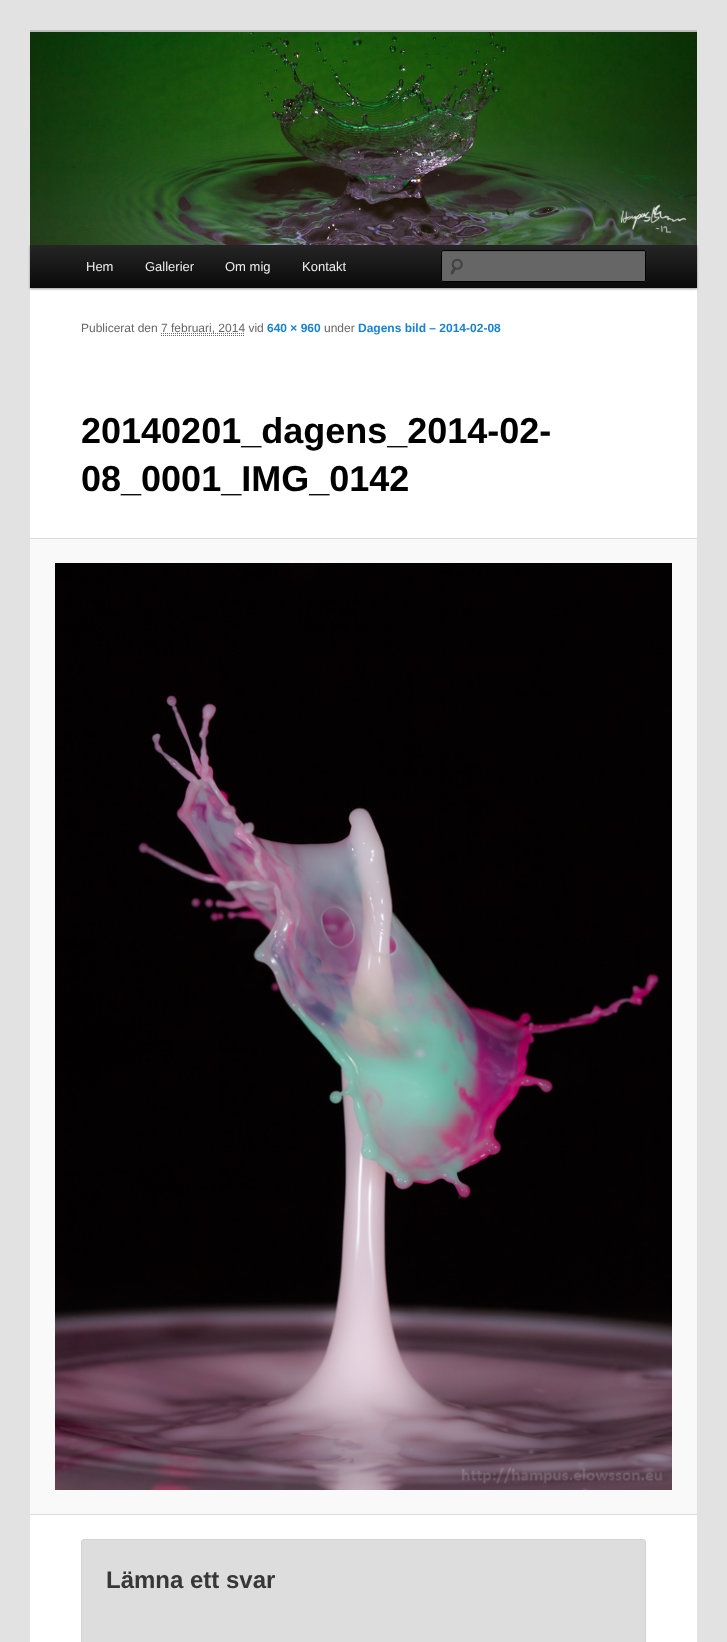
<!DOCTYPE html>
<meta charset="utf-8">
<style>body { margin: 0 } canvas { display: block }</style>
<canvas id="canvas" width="727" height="1642"></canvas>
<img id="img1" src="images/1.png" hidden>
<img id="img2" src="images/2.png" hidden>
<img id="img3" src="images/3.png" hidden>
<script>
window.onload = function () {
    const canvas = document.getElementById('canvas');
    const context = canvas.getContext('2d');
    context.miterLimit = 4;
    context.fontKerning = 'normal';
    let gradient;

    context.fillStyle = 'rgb(226, 226, 226)';
    context.fillRect(0, 0, 727, 1642);
    context.fillStyle = 'rgb(255, 255, 255)';
    context.fillRect(30, 288, 667, 1354);
    context.fillStyle = 'rgb(187, 187, 187)';
    context.fillRect(30, 30, 667, 2);
    context.fillStyle = 'rgba(0, 0, 0, 0.4)';
    context.filter = 'blur(1px)';
    context.beginPath();
    context.rect(30, 246, 667, 43);
    context.fill();
    context.filter = 'none';
    context.drawImage(document.getElementById('img1'), 30, 32, 667, 213);
    gradient = context.createLinearGradient(364, 245, 364, 288);
    gradient.addColorStop(0, 'rgb(37, 37, 37)');
    gradient.addColorStop(1, 'rgb(10, 10, 10)');
    context.fillStyle = gradient;
    context.fillRect(30, 245, 667, 43);
    context.fillStyle = 'rgb(102, 102, 102)';
    context.beginPath();
    context.roundRect(441, 250, 205, 32, 2);
    context.fill();
    context.drawImage(document.getElementById('img2'), 450, 258, 13, 17);
    context.fillStyle = 'rgb(92, 92, 92)';
    context.beginPath();
    context.moveTo(443, 252);
    context.lineTo(645, 252);
    context.lineTo(645, 253);
    context.bezierCurveTo(645, 252, 645, 251, 644, 251);
    context.lineTo(443, 251);
    context.lineTo(442, 251);
    context.lineTo(442, 253);
    context.bezierCurveTo(442, 252, 442, 252, 443, 252);
    context.closePath();
    context.fill();
    context.beginPath();
    context.roundRect(441.5, 250.5, 204, 31, 1.5);
    context.strokeStyle = 'rgb(0, 0, 0)';
    context.stroke();
    context.beginPath();
    context.moveTo(161, 335.5);
    context.lineTo(245, 335.5);
    context.strokeStyle = 'rgb(102, 102, 102)';
    context.setLineDash([1, 1]);
    context.stroke();
    context.beginPath();
    context.moveTo(161, 333.5);
    context.lineTo(245, 333.5);
    context.stroke();
    context.fillStyle = 'rgb(249, 249, 249)';
    context.fillRect(30, 539, 667, 975);
    context.fillStyle = 'rgb(221, 221, 221)';
    context.fillRect(30, 538, 667, 1);
    context.fillRect(30, 1514, 667, 1);
    context.drawImage(document.getElementById('img3'), 55, 563, 617, 927);
    context.beginPath();
    context.roundRect(81.5, 1539.5, 564, 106, 2.5);
    context.fill();
    context.strokeStyle = 'rgb(211, 211, 211)';
    context.setLineDash([]);
    context.stroke();
    context.font = '13px Liberation Sans';
    context.fillStyle = 'rgb(238, 238, 238)';
    context.fillText('Hem', 86, 271);
    context.fillText('Gallerier', 145, 271);
    context.fillText('Om mig', 225, 271);
    context.fillText('Kontakt', 302, 271);
    context.font = '12px Liberation Sans';
    context.fillStyle = 'rgb(102, 102, 102)';
    context.fillText('Publicerat den', 81, 332);
    context.fillText('7 februari, 2014 vid', 161, 332);
    context.font = 'bold 12px Liberation Sans';
    context.fillStyle = 'rgb(25, 130, 209)';
    context.fillText('640 × 960', 267, 332);
    context.font = '12px Liberation Sans';
    context.fillStyle = 'rgb(102, 102, 102)';
    context.fillText('under', 324, 332);
    context.font = 'bold 12px Liberation Sans';
    context.fillStyle = 'rgb(25, 130, 209)';
    context.fillText('Dagens bild – 2014-02-08', 358, 332);
    context.font = 'bold 36px Liberation Sans';
    context.fillStyle = 'rgb(0, 0, 0)';
    context.fillText('20140201_dagens_2014-02-', 81, 443);
    context.fillText('08_0001_IMG_0142', 81, 491);
    context.font = 'bold 24px Liberation Sans';
    context.fillStyle = 'rgb(55, 55, 55)';
    context.fillText('Lämna ett svar', 106, 1588);
};
</script>
